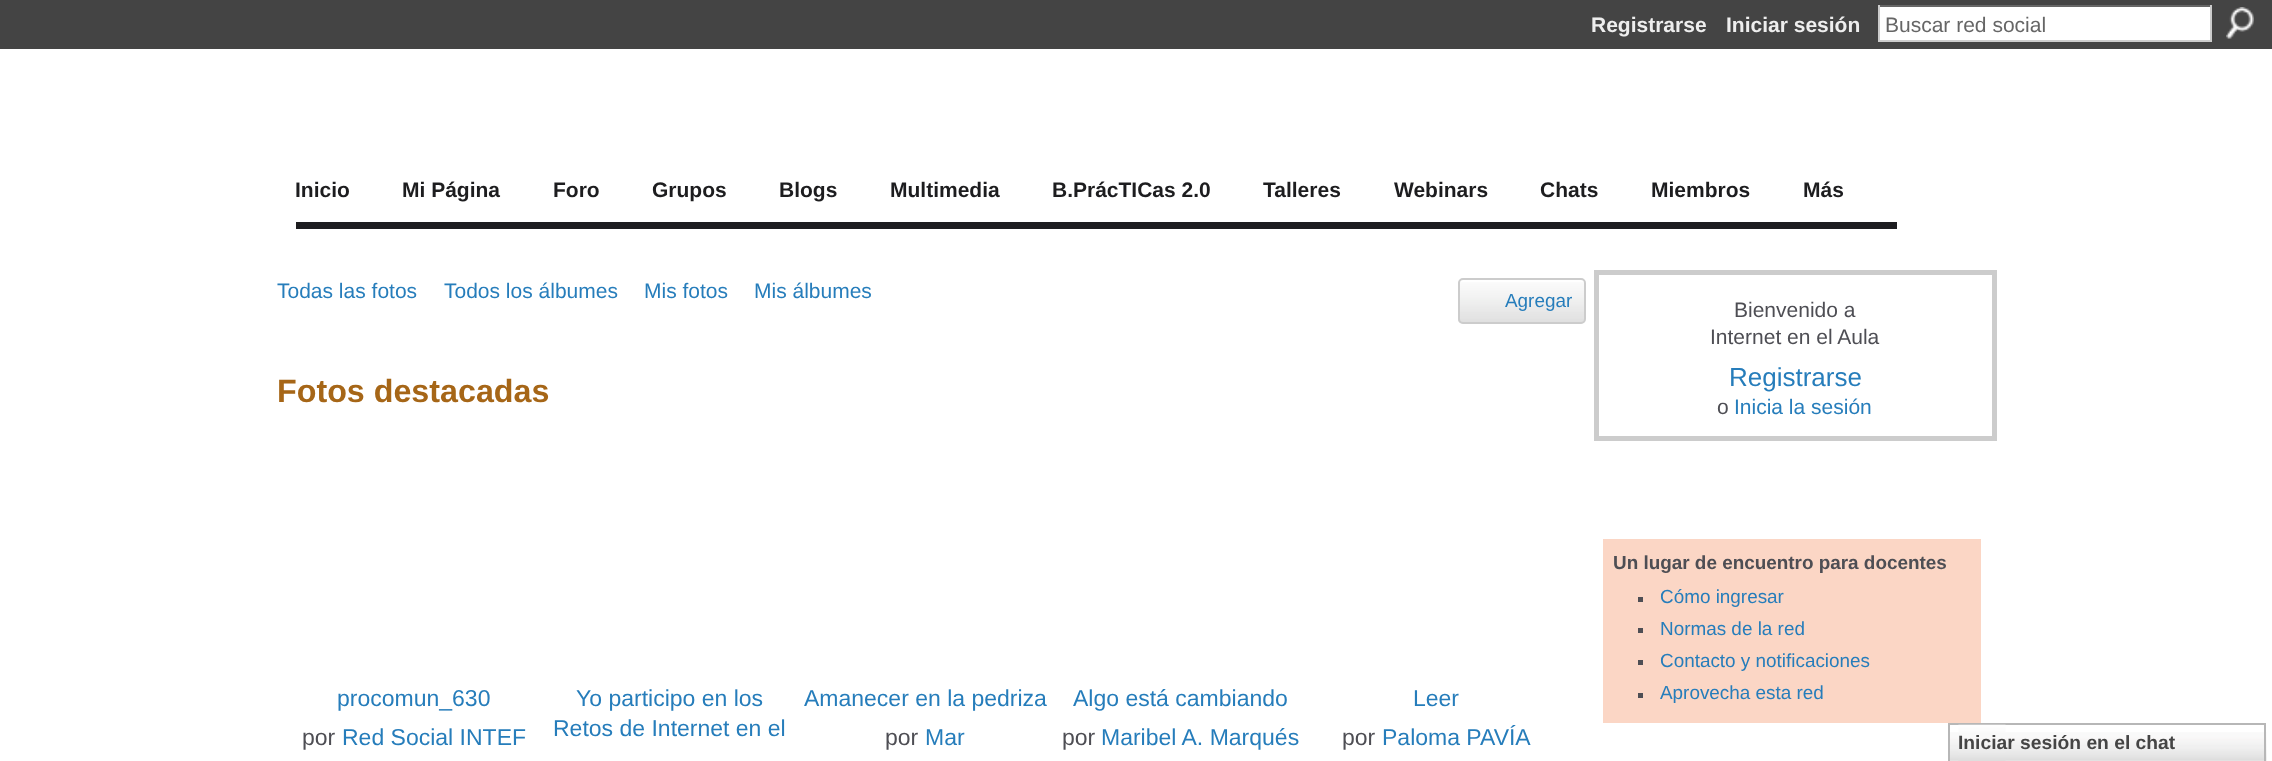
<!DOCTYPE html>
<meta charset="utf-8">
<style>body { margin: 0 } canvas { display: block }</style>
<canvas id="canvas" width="2272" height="761"></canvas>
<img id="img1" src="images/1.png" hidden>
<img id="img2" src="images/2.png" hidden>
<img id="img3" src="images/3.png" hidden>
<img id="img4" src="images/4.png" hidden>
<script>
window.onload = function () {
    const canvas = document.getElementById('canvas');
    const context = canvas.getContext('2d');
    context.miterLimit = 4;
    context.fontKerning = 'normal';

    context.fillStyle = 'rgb(255, 255, 255)';
    context.fillRect(0, 0, 2272, 761);
    context.fillStyle = 'rgb(68, 68, 68)';
    context.fillRect(0, 0, 2272, 49);
    context.fillStyle = 'rgb(255, 255, 255)';
    context.fillRect(1880, 7, 330, 33);
    context.fillStyle = 'rgb(102, 102, 102)';
    context.fillRect(1878, 5, 334, 2);
    context.fillStyle = 'rgb(204, 204, 204)';
    context.fillRect(2210, 5, 2, 37);
    context.fillRect(1878, 40, 334, 2);
    context.fillRect(1878, 5, 2, 37);
    context.drawImage(document.getElementById('img1'), 2226, 7, 28, 32);
    context.fillStyle = 'rgb(29, 29, 32)';
    context.fillRect(296, 222, 1601, 7);
    context.drawImage(document.getElementById('img2'), 1458, 282, 128, 42);
    context.beginPath();
    context.roundRect(1459, 279, 126, 44, 4);
    context.strokeStyle = 'rgb(204, 204, 204)';
    context.lineWidth = 2;
    context.stroke();
    context.lineWidth = 5;
    context.strokeRect(1596.5, 272.5, 398, 166);
    context.fillStyle = 'rgb(251, 214, 197)';
    context.fillRect(1603, 539, 378, 184);
    context.fillStyle = 'rgb(78, 78, 84)';
    context.fillRect(1638, 597, 5, 5);
    context.fillRect(1638, 628, 5, 5);
    context.fillRect(1638, 660, 5, 5);
    context.fillRect(1638, 693, 5, 5);
    context.drawImage(document.getElementById('img3'), 1950, 732, 317, 29);
    context.strokeStyle = 'rgb(183, 183, 183)';
    context.lineWidth = 2;
    context.strokeRect(1949, 724, 316, 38);
    context.drawImage(document.getElementById('img4'), 1958, 724, 48, 37);
    context.font = 'bold 21px Liberation Sans';
    context.fillStyle = 'rgb(238, 238, 238)';
    context.fillText('Registrarse', 1591, 32);
    context.fillText('Iniciar sesión', 1726, 32);
    context.font = '21px Liberation Sans';
    context.fillStyle = 'rgb(102, 102, 102)';
    context.fillText('Buscar red social', 1885, 32);
    context.font = 'bold 21px Liberation Sans';
    context.fillStyle = 'rgb(29, 29, 31)';
    context.fillText('Inicio', 295, 197);
    context.fillText('Mi Página', 402, 197);
    context.fillText('Foro', 553, 197);
    context.fillText('Grupos', 652, 197);
    context.fillText('Blogs', 779, 197);
    context.fillText('Multimedia', 890, 197);
    context.fillText('B.PrácTICas 2.0', 1052, 197);
    context.fillText('Talleres', 1263, 197);
    context.fillText('Webinars', 1394, 197);
    context.fillText('Chats', 1540, 197);
    context.fillText('Miembros', 1651, 197);
    context.fillText('Más', 1803, 197);
    context.font = '21px Liberation Sans';
    context.fillStyle = 'rgb(38, 125, 187)';
    context.fillText('Todas las fotos', 277, 298);
    context.fillText('Todos los álbumes', 444, 298);
    context.fillText('Mis fotos', 644, 298);
    context.fillText('Mis álbumes', 754, 298);
    context.font = '18.9px Liberation Sans';
    context.fillText('Agregar', 1505, 307);
    context.font = 'bold 32.25px Liberation Sans';
    context.fillStyle = 'rgb(166, 102, 23)';
    context.fillText('Fotos destacadas', 277, 402);
    context.font = '23px Liberation Sans';
    context.fillStyle = 'rgb(38, 125, 187)';
    context.fillText('procomun_630', 337, 706);
    context.fillStyle = 'rgb(78, 78, 84)';
    context.fillText('por', 302, 745);
    context.fillStyle = 'rgb(38, 125, 187)';
    context.fillText('Red Social INTEF', 342, 745);
    context.fillText('Yo participo en los', 576, 706);
    context.fillText('Retos de Internet en el', 553, 736);
    context.fillText('Amanecer en la pedriza', 804, 706);
    context.fillStyle = 'rgb(78, 78, 84)';
    context.fillText('por', 885, 745);
    context.fillStyle = 'rgb(38, 125, 187)';
    context.fillText('Mar', 925, 745);
    context.fillText('Algo está cambiando', 1073, 706);
    context.fillStyle = 'rgb(78, 78, 84)';
    context.fillText('por', 1062, 745);
    context.fillStyle = 'rgb(38, 125, 187)';
    context.fillText('Maribel A. Marqués', 1101, 745);
    context.fillText('Leer', 1413, 706);
    context.fillStyle = 'rgb(78, 78, 84)';
    context.fillText('por', 1342, 745);
    context.fillStyle = 'rgb(38, 125, 187)';
    context.fillText('Paloma PAVÍA', 1382, 745);
    context.font = '21px Liberation Sans';
    context.fillStyle = 'rgb(78, 78, 84)';
    context.fillText('Bienvenido a', 1734, 317);
    context.fillText('Internet en el Aula', 1710, 344);
    context.font = '26px Liberation Sans';
    context.fillStyle = 'rgb(38, 125, 187)';
    context.fillText('Registrarse', 1729, 386);
    context.font = '21px Liberation Sans';
    context.fillStyle = 'rgb(78, 78, 84)';
    context.fillText('o', 1717, 414);
    context.fillStyle = 'rgb(38, 125, 187)';
    context.fillText('Inicia la sesión', 1734, 414);
    context.font = 'bold 18.9px Liberation Sans';
    context.fillStyle = 'rgb(78, 78, 84)';
    context.fillText('Un lugar de encuentro para docentes', 1613, 569);
    context.font = '18.9px Liberation Sans';
    context.fillStyle = 'rgb(38, 125, 187)';
    context.fillText('Cómo ingresar', 1660, 603);
    context.fillText('Normas de la red', 1660, 635);
    context.fillText('Contacto y notificaciones', 1660, 667);
    context.fillText('Aprovecha esta red', 1660, 699);
    context.font = 'bold 19.25px Liberation Sans';
    context.fillStyle = 'rgb(69, 69, 69)';
    context.fillText('Iniciar sesión en el chat', 1958, 749);
};
</script>
